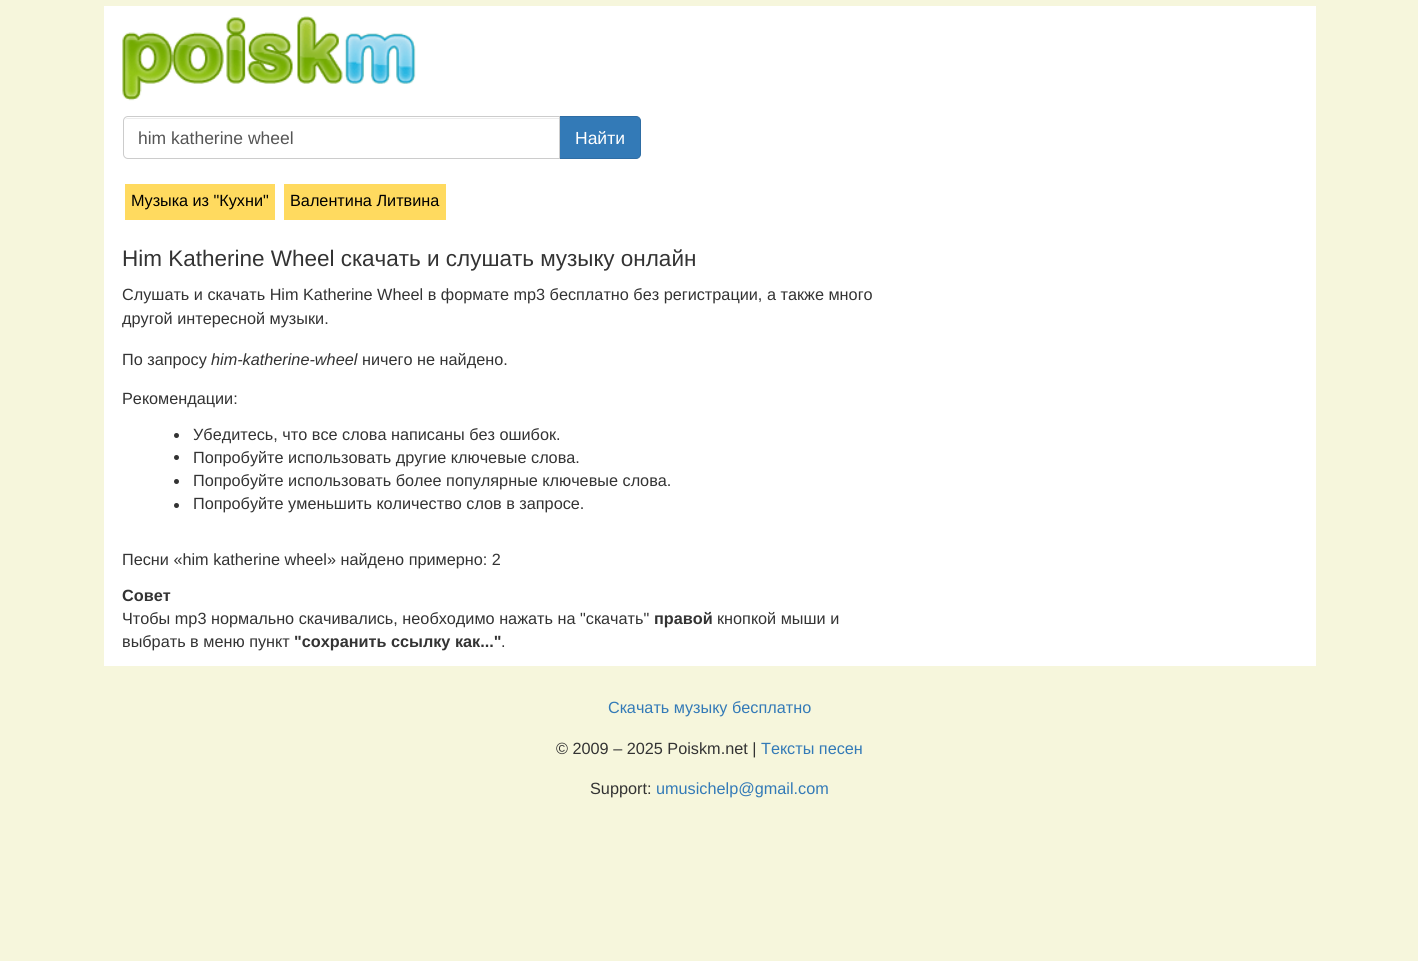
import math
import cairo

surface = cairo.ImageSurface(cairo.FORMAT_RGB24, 1418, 961)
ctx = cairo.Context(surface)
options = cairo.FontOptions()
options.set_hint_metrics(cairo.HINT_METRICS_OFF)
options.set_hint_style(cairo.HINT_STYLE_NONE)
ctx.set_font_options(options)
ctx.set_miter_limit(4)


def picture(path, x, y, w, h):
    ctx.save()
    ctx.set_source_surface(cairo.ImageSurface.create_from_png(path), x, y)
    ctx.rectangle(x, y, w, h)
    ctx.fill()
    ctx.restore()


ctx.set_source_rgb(0.961, 0.961, 0.863)
ctx.paint()
ctx.set_source_rgb(1, 1, 1)
ctx.rectangle(104, 6, 1212, 660)
ctx.fill()
picture("img1.png", 122, 16, 294, 85)
ctx.set_source_rgb(0.2, 0.478, 0.718)
ctx.new_path()
ctx.move_to(559.5, 116.5)
ctx.line_to(636, 116.5)
ctx.curve_to(638.5, 116.5, 640.5, 118.5, 640.5, 121)
ctx.line_to(640.5, 154)
ctx.curve_to(640.5, 156.5, 638.5, 158.5, 636, 158.5)
ctx.line_to(559.5, 158.5)
ctx.close_path()
ctx.fill_preserve()
ctx.set_source_rgb(0.18, 0.427, 0.643)
ctx.set_line_width(1)
ctx.stroke()
ctx.set_source_rgb(1, 1, 1)
ctx.new_path()
ctx.move_to(128, 116)
ctx.line_to(560, 116)
ctx.line_to(560, 159)
ctx.line_to(128, 159)
ctx.curve_to(125, 159, 123, 157, 123, 154)
ctx.line_to(123, 121)
ctx.curve_to(123, 118, 125, 116, 128, 116)
ctx.close_path()
ctx.fill()
ctx.set_source_rgb(0.925, 0.925, 0.925)
ctx.new_path()
ctx.move_to(128, 119)
ctx.line_to(559, 119)
ctx.line_to(559, 118)
ctx.line_to(128, 118)
ctx.curve_to(126, 118, 125, 119, 124, 120)
ctx.curve_to(125, 119, 126, 119, 128, 119)
ctx.close_path()
ctx.fill()
ctx.new_path()
ctx.move_to(128, 116.5)
ctx.line_to(559.5, 116.5)
ctx.line_to(559.5, 158.5)
ctx.line_to(128, 158.5)
ctx.curve_to(125.5, 158.5, 123.5, 156.5, 123.5, 154)
ctx.line_to(123.5, 121)
ctx.curve_to(123.5, 118.5, 125.5, 116.5, 128, 116.5)
ctx.close_path()
ctx.set_source_rgb(0.8, 0.8, 0.8)
ctx.stroke()
ctx.select_font_face("Liberation Sans")
ctx.set_font_size(17.5)
ctx.set_source_rgb(0.333, 0.333, 0.333)
ctx.move_to(138, 144)
ctx.show_text("him katherine wheel")
ctx.set_source_rgb(1, 1, 1)
ctx.move_to(575, 144)
ctx.show_text("Найти")
ctx.set_source_rgb(1, 0.855, 0.373)
ctx.rectangle(125, 184, 150, 36)
ctx.fill()
ctx.set_font_size(16.25)
ctx.set_source_rgb(0, 0, 0)
ctx.move_to(131, 206)
ctx.show_text("Музыка из \"Кухни\"")
ctx.set_source_rgb(1, 0.855, 0.373)
ctx.rectangle(284, 184, 162, 36)
ctx.fill()
ctx.set_source_rgb(0, 0, 0)
ctx.move_to(290, 206)
ctx.show_text("Валентина Литвина")
ctx.set_font_size(22.5)
ctx.set_source_rgb(0.2, 0.2, 0.2)
ctx.move_to(122, 266)
ctx.show_text("Him Katherine Wheel скачать и слушать музыку онлайн")
ctx.set_font_size(16.25)
ctx.move_to(122, 300)
ctx.show_text("Cлушать и скачать Him Katherine Wheel в формате mp3 бесплатно без регистрации, а также много")
ctx.move_to(122, 324)
ctx.show_text("другой интересной музыки.")
ctx.move_to(122, 365)
ctx.show_text("По запросу")
ctx.select_font_face("Liberation Sans", cairo.FONT_SLANT_ITALIC)
ctx.move_to(211, 365)
ctx.show_text("him-katherine-wheel")
ctx.select_font_face("Liberation Sans")
ctx.move_to(362, 365)
ctx.show_text("ничего не найдено.")
ctx.move_to(122, 404)
ctx.show_text("Рекомендации:")
ctx.new_path()
ctx.arc(176.5, 435.5, 2.5, 0, 2 * math.pi)
ctx.fill()
ctx.move_to(193, 440)
ctx.show_text("Убедитесь, что все слова написаны без ошибок.")
ctx.new_path()
ctx.arc(176.5, 457.5, 2.5, 0, 2 * math.pi)
ctx.fill()
ctx.move_to(193, 463)
ctx.show_text("Попробуйте использовать другие ключевые слова.")
ctx.new_path()
ctx.arc(176.5, 481.5, 2.5, 0, 2 * math.pi)
ctx.fill()
ctx.move_to(193, 486)
ctx.show_text("Попробуйте использовать более популярные ключевые слова.")
ctx.new_path()
ctx.arc(176.5, 505.5, 2.5, 0, 2 * math.pi)
ctx.fill()
ctx.move_to(193, 509)
ctx.show_text("Попробуйте уменьшить количество слов в запросе.")
ctx.move_to(122, 565)
ctx.show_text("Песни «him katherine wheel» найдено примерно: 2")
ctx.select_font_face("Liberation Sans", cairo.FONT_SLANT_NORMAL, cairo.FONT_WEIGHT_BOLD)
ctx.move_to(122, 601)
ctx.show_text("Совет")
ctx.select_font_face("Liberation Sans")
ctx.move_to(122, 624)
ctx.show_text("Чтобы mp3 нормально скачивались, необходимо нажать на \"скачать\"")
ctx.select_font_face("Liberation Sans", cairo.FONT_SLANT_NORMAL, cairo.FONT_WEIGHT_BOLD)
ctx.move_to(654, 624)
ctx.show_text("правой")
ctx.select_font_face("Liberation Sans")
ctx.move_to(717, 624)
ctx.show_text("кнопкой мыши и")
ctx.move_to(122, 647)
ctx.show_text("выбрать в меню пункт")
ctx.select_font_face("Liberation Sans", cairo.FONT_SLANT_NORMAL, cairo.FONT_WEIGHT_BOLD)
ctx.move_to(294, 647)
ctx.show_text("\"сохранить ссылку как...\"")
ctx.select_font_face("Liberation Sans")
ctx.move_to(501, 647)
ctx.show_text(".")
ctx.set_source_rgb(0.2, 0.478, 0.718)
ctx.move_to(608, 713)
ctx.show_text("Скачать музыку бесплатно")
ctx.set_source_rgb(0.2, 0.2, 0.2)
ctx.move_to(556, 754)
ctx.show_text("© 2009 – 2025 Poiskm.net |")
ctx.set_source_rgb(0.2, 0.478, 0.718)
ctx.move_to(761, 754)
ctx.show_text("Тексты песен")
ctx.set_source_rgb(0.2, 0.2, 0.2)
ctx.move_to(590, 794)
ctx.show_text("Support:")
ctx.set_source_rgb(0.2, 0.478, 0.718)
ctx.move_to(656, 794)
ctx.show_text("umusichelp@gmail.com")
surface.write_to_png("page.png")
